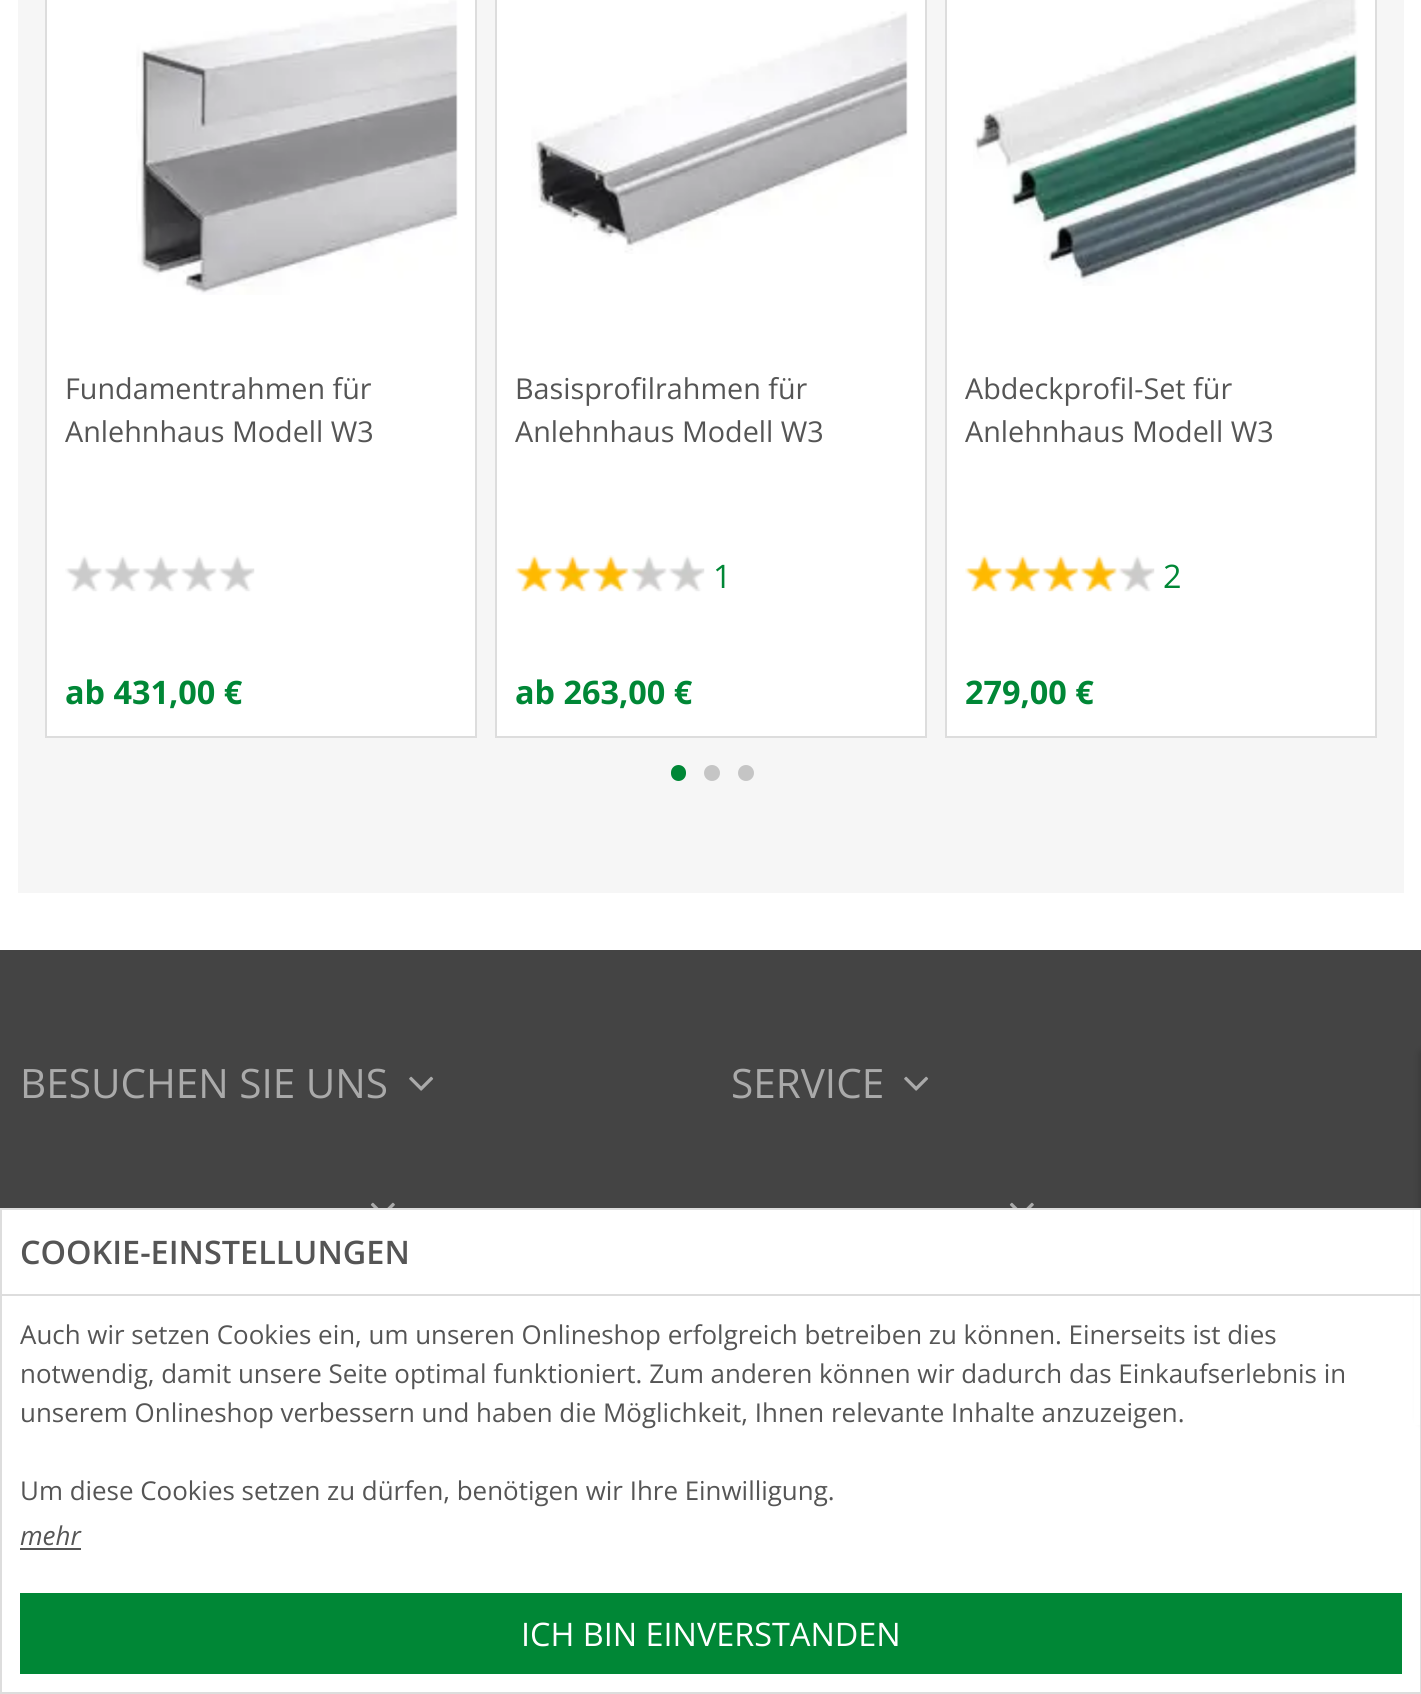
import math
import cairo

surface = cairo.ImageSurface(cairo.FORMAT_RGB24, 1421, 1694)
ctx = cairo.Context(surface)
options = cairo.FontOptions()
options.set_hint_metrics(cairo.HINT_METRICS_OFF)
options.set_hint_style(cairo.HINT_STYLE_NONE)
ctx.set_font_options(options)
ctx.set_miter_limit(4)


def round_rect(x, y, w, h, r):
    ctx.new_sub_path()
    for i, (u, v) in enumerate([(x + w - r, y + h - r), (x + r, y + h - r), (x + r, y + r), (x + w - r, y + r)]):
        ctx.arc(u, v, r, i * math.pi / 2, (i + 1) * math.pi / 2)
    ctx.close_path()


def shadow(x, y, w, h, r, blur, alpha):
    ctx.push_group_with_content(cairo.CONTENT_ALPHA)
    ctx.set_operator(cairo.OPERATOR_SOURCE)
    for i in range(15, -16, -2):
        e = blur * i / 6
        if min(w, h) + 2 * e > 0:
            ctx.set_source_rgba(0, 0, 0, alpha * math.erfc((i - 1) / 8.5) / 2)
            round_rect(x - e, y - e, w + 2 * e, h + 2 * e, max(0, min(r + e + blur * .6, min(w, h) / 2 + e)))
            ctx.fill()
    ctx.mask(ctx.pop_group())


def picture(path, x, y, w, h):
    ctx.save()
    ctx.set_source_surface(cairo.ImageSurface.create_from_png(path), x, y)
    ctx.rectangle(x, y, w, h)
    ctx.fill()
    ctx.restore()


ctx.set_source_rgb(1, 1, 1)
ctx.paint()
ctx.set_source_rgb(0.961, 0.961, 0.961)
ctx.rectangle(18, 0, 1386, 893)
ctx.fill()
ctx.set_source_rgb(1, 1, 1)
ctx.rectangle(46, -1, 430, 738)
ctx.fill_preserve()
ctx.set_source_rgb(0.867, 0.867, 0.867)
ctx.stroke()
picture("img1.png", 136, 0, 322, 295)
ctx.select_font_face("Open Sans")
ctx.set_font_size(28.75)
ctx.set_source_rgb(0.333, 0.333, 0.333)
ctx.move_to(65, 399)
ctx.show_text("Fundamentrahmen für")
ctx.move_to(65, 442)
ctx.show_text("Anlehnhaus Modell W3")
picture("img2.png", 65, 555, 190, 37)
ctx.select_font_face("Open Sans", cairo.FONT_SLANT_NORMAL, cairo.FONT_WEIGHT_BOLD)
ctx.set_font_size(32.4)
ctx.set_source_rgb(0, 0.529, 0.212)
ctx.move_to(65, 704)
ctx.show_text("ab 431,00 €")
ctx.set_source_rgb(1, 1, 1)
ctx.rectangle(496, -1, 430, 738)
ctx.fill_preserve()
ctx.set_source_rgb(0.867, 0.867, 0.867)
ctx.stroke()
picture("img3.png", 531, 11, 377, 243)
ctx.select_font_face("Open Sans")
ctx.set_font_size(28.75)
ctx.set_source_rgb(0.333, 0.333, 0.333)
ctx.move_to(515, 399)
ctx.show_text("Basisprofilrahmen für")
ctx.move_to(515, 442)
ctx.show_text("Anlehnhaus Modell W3")
picture("img4.png", 515, 555, 190, 37)
ctx.set_font_size(32.4)
ctx.set_source_rgb(0, 0.529, 0.212)
ctx.move_to(713, 588)
ctx.show_text("1")
ctx.select_font_face("Open Sans", cairo.FONT_SLANT_NORMAL, cairo.FONT_WEIGHT_BOLD)
ctx.move_to(515, 704)
ctx.show_text("ab 263,00 €")
ctx.set_source_rgb(1, 1, 1)
ctx.rectangle(946, -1, 430, 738)
ctx.fill_preserve()
ctx.set_source_rgb(0.867, 0.867, 0.867)
ctx.stroke()
picture("img5.png", 973, 0, 385, 286)
ctx.select_font_face("Open Sans")
ctx.set_font_size(28.75)
ctx.set_source_rgb(0.333, 0.333, 0.333)
ctx.move_to(965, 399)
ctx.show_text("Abdeckprofil-Set für")
ctx.move_to(965, 442)
ctx.show_text("Anlehnhaus Modell W3")
picture("img6.png", 965, 555, 190, 37)
ctx.set_font_size(32.4)
ctx.set_source_rgb(0, 0.529, 0.212)
ctx.move_to(1163, 588)
ctx.show_text("2")
ctx.select_font_face("Open Sans", cairo.FONT_SLANT_NORMAL, cairo.FONT_WEIGHT_BOLD)
ctx.move_to(965, 704)
ctx.show_text("279,00 €")
round_rect(671, 765, 15, 16, 7.5)
ctx.fill()
ctx.set_source_rgb(0.773, 0.773, 0.773)
ctx.arc(712, 773, 8, 0, 2 * math.pi)
ctx.fill()
ctx.arc(746, 773, 8, 0, 2 * math.pi)
ctx.fill()
ctx.set_source_rgb(0.267, 0.267, 0.267)
ctx.rectangle(0, 950, 1421, 258)
ctx.fill()
ctx.select_font_face("Open Sans")
ctx.set_font_size(40.5)
ctx.set_source_rgb(0.667, 0.667, 0.667)
ctx.move_to(20, 1098)
ctx.show_text("BESUCHEN SIE UNS")
picture("img7.png", 409, 1076, 25, 15)
ctx.move_to(731, 1098)
ctx.show_text("SERVICE")
picture("img7.png", 904, 1076, 25, 15)
picture("img8.png", 370, 1202, 25, 6)
picture("img8.png", 1009, 1202, 25, 6)
ctx.set_source_rgb(0, 0, 0)
shadow(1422, 1053, 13, 367, 0, 4.5, 0.3)
ctx.set_source_rgb(1, 1, 1)
ctx.rectangle(1414, 1210, 6, 215)
ctx.fill()
ctx.rectangle(1, 1209, 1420, 484)
ctx.set_source_rgb(0.867, 0.867, 0.867)
ctx.stroke()
ctx.rectangle(2, 1294, 1418, 2)
ctx.fill()
ctx.select_font_face("Open Sans SemiBold")
ctx.set_font_size(32.4)
ctx.set_source_rgb(0.333, 0.333, 0.333)
ctx.move_to(20, 1264)
ctx.show_text("COOKIE-EINSTELLUNGEN")
ctx.select_font_face("Open Sans")
ctx.set_font_size(25.92)
ctx.move_to(20, 1344)
ctx.show_text("Auch wir setzen Cookies ein, um unseren Onlineshop erfolgreich betreiben zu können. Einerseits ist dies")
ctx.move_to(20, 1383)
ctx.show_text("notwendig, damit unsere Seite optimal funktioniert. Zum anderen können wir dadurch das Einkaufserlebnis in")
ctx.move_to(20, 1422)
ctx.show_text("unserem Onlineshop verbessern und haben die Möglichkeit, Ihnen relevante Inhalte anzuzeigen.")
ctx.move_to(20, 1500)
ctx.show_text("Um diese Cookies setzen zu dürfen, benötigen wir Ihre Einwilligung.")
ctx.select_font_face("Open Sans", cairo.FONT_SLANT_ITALIC)
ctx.move_to(20, 1545)
ctx.show_text("mehr")
ctx.rectangle(20, 1548, 61, 2)
ctx.fill()
ctx.set_source_rgb(0, 0.529, 0.212)
ctx.rectangle(20, 1593, 1382, 81)
ctx.fill()
ctx.select_font_face("Open Sans")
ctx.set_font_size(32.4)
ctx.set_source_rgb(1, 1, 1)
ctx.move_to(521, 1646)
ctx.show_text("ICH BIN EINVERSTANDEN")
surface.write_to_png("page.png")
